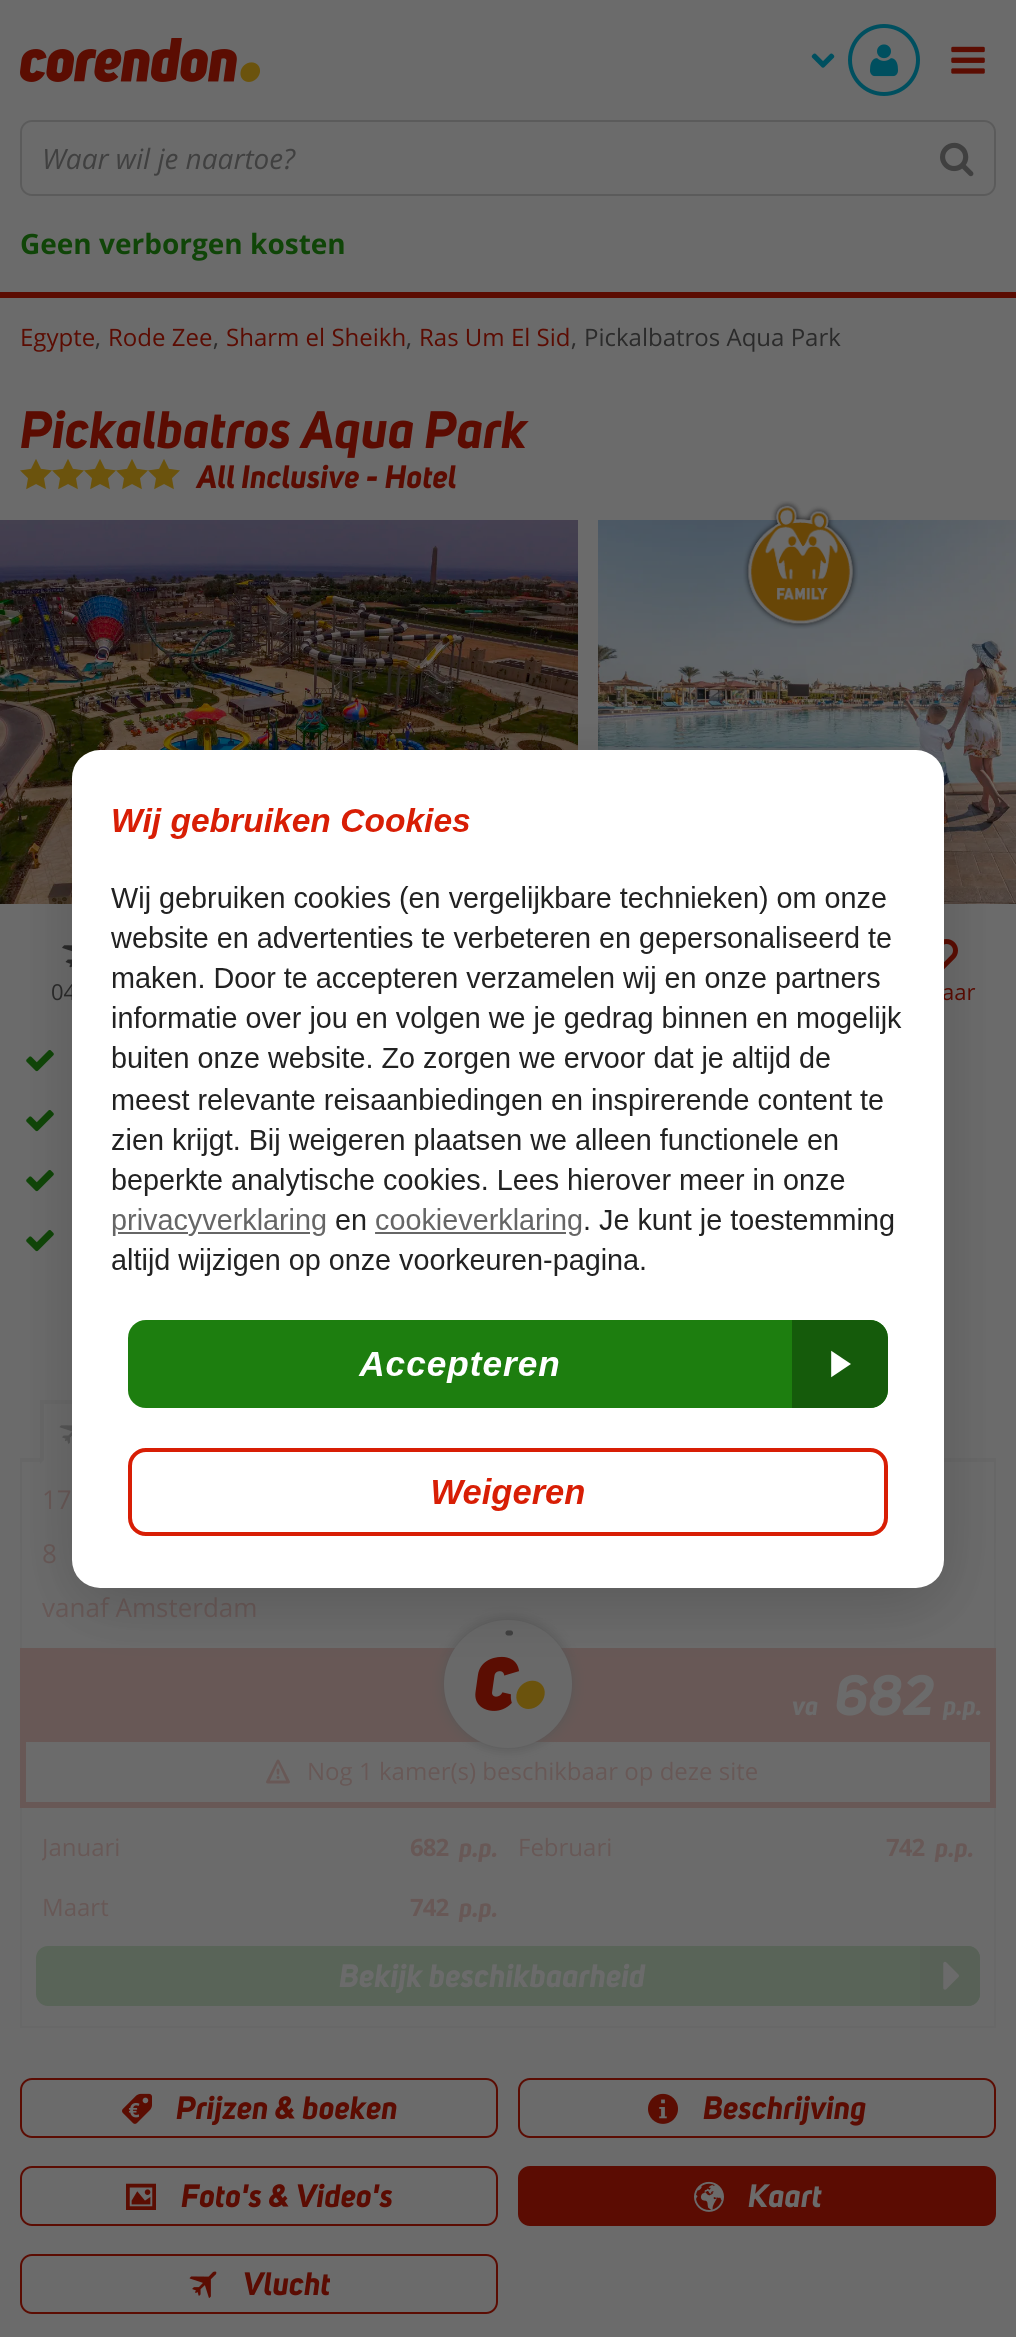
import math
import cairo

surface = cairo.ImageSurface(cairo.FORMAT_RGB24, 1016, 2337)
ctx = cairo.Context(surface)
options = cairo.FontOptions()
options.set_hint_metrics(cairo.HINT_METRICS_OFF)
options.set_hint_style(cairo.HINT_STYLE_NONE)
ctx.set_font_options(options)
ctx.set_miter_limit(4)


def spaced_text(x, y, s, letter, word):
    ctx.move_to(x, y)
    for ch in s:
        ctx.show_text(ch)
        ctx.rel_move_to(letter + word * (ch == ' '), 0)


def round_rect(x, y, w, h, r):
    ctx.new_sub_path()
    for i, (u, v) in enumerate([(x + w - r, y + h - r), (x + r, y + h - r), (x + r, y + r), (x + w - r, y + r)]):
        ctx.arc(u, v, r, i * math.pi / 2, (i + 1) * math.pi / 2)
    ctx.close_path()


def shadow(x, y, w, h, r, blur, alpha):
    ctx.push_group_with_content(cairo.CONTENT_ALPHA)
    ctx.set_operator(cairo.OPERATOR_SOURCE)
    for i in range(15, -16, -2):
        e = blur * i / 6
        if min(w, h) + 2 * e > 0:
            ctx.set_source_rgba(0, 0, 0, alpha * math.erfc((i - 1) / 8.5) / 2)
            round_rect(x - e, y - e, w + 2 * e, h + 2 * e, max(0, min(r + e + blur * .6, min(w, h) / 2 + e)))
            ctx.fill()
    ctx.mask(ctx.pop_group())


def picture(path, x, y, w, h):
    ctx.save()
    ctx.set_source_surface(cairo.ImageSurface.create_from_png(path), x, y)
    ctx.rectangle(x, y, w, h)
    ctx.fill()
    ctx.restore()


ctx.set_source_rgb(0.702, 0.702, 0.702)
ctx.paint()
ctx.set_source_rgb(0.592, 0.082, 0.016)
ctx.rectangle(0, 292, 1016, 6)
ctx.fill()
picture("img2.png", 20, 38, 240, 44)
picture("img3.png", 811, 53, 24, 15)
ctx.arc(884, 60, 34, 0, 2 * math.pi)
ctx.set_source_rgb(0, 0.518, 0.62)
ctx.set_line_width(4)
ctx.stroke()
picture("img4.png", 870, 44, 28, 33)
picture("img5.png", 951, 46, 34, 28)
round_rect(21, 121, 974, 74, 11)
ctx.set_source_rgb(0.596, 0.596, 0.596)
ctx.set_line_width(2)
ctx.stroke()
ctx.select_font_face("Open Sans", cairo.FONT_SLANT_ITALIC)
ctx.set_font_size(28)
ctx.set_source_rgb(0.42, 0.42, 0.42)
ctx.move_to(42, 169)
ctx.show_text("Waar wil je naartoe?")
picture("img6.png", 940, 142, 34, 35)
ctx.select_font_face("Open Sans", cairo.FONT_SLANT_NORMAL, cairo.FONT_WEIGHT_BOLD)
ctx.set_source_rgb(0.106, 0.451, 0.055)
ctx.move_to(20, 254)
ctx.show_text("Geen verborgen kosten")
ctx.select_font_face("Open Sans")
ctx.set_font_size(24)
ctx.set_source_rgb(0.592, 0.082, 0.016)
ctx.move_to(20, 346)
ctx.show_text("Egypte")
ctx.set_source_rgb(0.278, 0.278, 0.278)
ctx.move_to(95, 346)
ctx.show_text(",")
ctx.set_source_rgb(0.592, 0.082, 0.016)
ctx.move_to(108, 346)
ctx.show_text("Rode Zee")
ctx.set_source_rgb(0.278, 0.278, 0.278)
ctx.move_to(213, 346)
ctx.show_text(",")
ctx.set_source_rgb(0.592, 0.082, 0.016)
ctx.move_to(226, 346)
ctx.show_text("Sharm el Sheikh")
ctx.set_source_rgb(0.278, 0.278, 0.278)
ctx.move_to(406, 346)
ctx.show_text(",")
ctx.set_source_rgb(0.592, 0.082, 0.016)
ctx.move_to(419, 346)
ctx.show_text("Ras Um El Sid")
ctx.set_source_rgb(0.278, 0.278, 0.278)
ctx.move_to(571, 346)
ctx.show_text(",")
ctx.move_to(584, 346)
ctx.show_text("Pickalbatros Aqua Park")
ctx.select_font_face("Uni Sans", cairo.FONT_SLANT_ITALIC, cairo.FONT_WEIGHT_BOLD)
ctx.set_font_size(52)
ctx.set_source_rgb(0.592, 0.082, 0.016)
ctx.move_to(20, 448)
ctx.show_text("Pickalbatros Aqua Park")
picture("img7.png", 20, 459, 160, 31)
ctx.set_font_size(32)
ctx.move_to(197, 488)
ctx.show_text("All Inclusive - Hotel")
picture("img10.png", 598, 520, 418, 384)
picture("img8.png", 743, 501, 115, 128)
picture("img9.png", 0, 520, 578, 384)
picture("img11.png", 62, 945, 10, 23)
ctx.select_font_face("Open Sans")
ctx.set_font_size(22)
ctx.set_source_rgb(0.278, 0.278, 0.278)
ctx.move_to(51, 1000)
ctx.show_text("04")
picture("img12.png", 944, 939, 14, 31)
ctx.set_source_rgb(0.592, 0.082, 0.016)
ctx.move_to(942, 1000)
ctx.show_text("aar")
picture("img13.png", 26, 1050, 28, 22)
picture("img13.png", 26, 1110, 28, 22)
picture("img13.png", 26, 1170, 28, 22)
picture("img13.png", 26, 1230, 28, 22)
ctx.set_source_rgb(0.678, 0.678, 0.678)
ctx.rectangle(994, 1458, 2, 190)
ctx.fill()
ctx.rectangle(20, 1458, 2, 190)
ctx.fill()
ctx.rectangle(20, 1458, 976, 4)
ctx.fill()
ctx.set_source_rgb(0.702, 0.702, 0.702)
ctx.rectangle(40, 1458, 32, 4)
ctx.fill()
ctx.set_source_rgb(0.678, 0.678, 0.678)
ctx.rectangle(40, 1400, 32, 4)
ctx.fill()
ctx.set_source_rgb(0.702, 0.702, 0.702)
ctx.new_path()
ctx.move_to(170, 1464)
ctx.line_to(40, 1464)
ctx.line_to(44, 1460)
ctx.line_to(166, 1460)
ctx.close_path()
ctx.fill()
ctx.set_source_rgb(0.678, 0.678, 0.678)
ctx.new_path()
ctx.move_to(40, 1464)
ctx.line_to(40, 1400)
ctx.line_to(44, 1404)
ctx.line_to(44, 1460)
ctx.close_path()
ctx.fill()
picture("img14.png", 59, 1425, 13, 19)
ctx.set_font_size(26)
ctx.set_source_rgb(0.678, 0.576, 0.565)
ctx.move_to(42, 1509)
ctx.show_text("17")
ctx.move_to(42, 1563)
ctx.show_text("8")
ctx.move_to(42, 1617)
ctx.show_text("vanaf Amsterdam")
ctx.rectangle(20, 1648, 976, 88)
ctx.fill()
ctx.rectangle(23, 1739, 970, 66)
ctx.set_line_width(6)
ctx.stroke()
ctx.set_source_rgb(0.561, 0.561, 0.561)
shadow(444, 1620, 128, 128, 64, 6.5, 1)
ctx.set_source_rgb(0.686, 0.686, 0.686)
ctx.arc(508, 1684, 64, 0, 2 * math.pi)
ctx.fill()
ctx.new_path()
ctx.move_to(508, 1633)
ctx.line_to(510.5, 1633)
ctx.set_source_rgb(0.42, 0.42, 0.42)
ctx.set_line_width(5.1)
ctx.set_line_cap(cairo.LINE_CAP_ROUND)
ctx.stroke()
picture("img15.png", 475, 1656, 70, 55)
ctx.select_font_face("Uni Sans", cairo.FONT_SLANT_ITALIC, cairo.FONT_WEIGHT_BOLD)
ctx.set_source_rgb(0.702, 0.702, 0.702)
ctx.move_to(792, 1715)
ctx.show_text("va")
ctx.set_font_size(56)
ctx.move_to(835, 1715)
ctx.show_text("682")
ctx.set_font_size(26)
ctx.move_to(943, 1715)
ctx.show_text("p.p.")
picture("img16.png", 266, 1759, 24, 25)
ctx.select_font_face("Open Sans")
ctx.set_font_size(24)
ctx.set_source_rgb(0.678, 0.576, 0.565)
ctx.move_to(307, 1780)
ctx.show_text("Nog 1 kamer(s) beschikbaar op deze site")
ctx.set_source_rgb(0.678, 0.678, 0.678)
ctx.rectangle(994, 1808, 2, 220)
ctx.fill()
ctx.rectangle(20, 1808, 2, 142)
ctx.fill()
ctx.save()
ctx.rectangle(42, 1828, 456, 40)
ctx.clip()
ctx.set_source_rgb(0.678, 0.576, 0.565)
ctx.move_to(42, 1856)
ctx.show_text("Januari")
ctx.restore()
ctx.select_font_face("Open Sans", cairo.FONT_SLANT_NORMAL, cairo.FONT_WEIGHT_BOLD)
ctx.set_source_rgb(0.678, 0.576, 0.565)
spaced_text(410, 1856, "682", -1, 0)
ctx.select_font_face("Uni Sans", cairo.FONT_SLANT_ITALIC, cairo.FONT_WEIGHT_BOLD)
ctx.set_font_size(26)
ctx.move_to(459, 1857)
ctx.show_text("p.p.")
ctx.select_font_face("Open Sans")
ctx.set_font_size(24)
ctx.move_to(518, 1856)
ctx.show_text("Februari")
ctx.select_font_face("Open Sans", cairo.FONT_SLANT_NORMAL, cairo.FONT_WEIGHT_BOLD)
spaced_text(886, 1856, "742", -1, 0)
ctx.select_font_face("Uni Sans", cairo.FONT_SLANT_ITALIC, cairo.FONT_WEIGHT_BOLD)
ctx.set_font_size(26)
ctx.move_to(935, 1857)
ctx.show_text("p.p.")
ctx.select_font_face("Open Sans")
ctx.set_font_size(24)
ctx.move_to(42, 1916)
ctx.show_text("Maart")
ctx.select_font_face("Open Sans", cairo.FONT_SLANT_NORMAL, cairo.FONT_WEIGHT_BOLD)
spaced_text(410, 1916, "742", -1, 0)
ctx.select_font_face("Uni Sans", cairo.FONT_SLANT_ITALIC, cairo.FONT_WEIGHT_BOLD)
ctx.set_font_size(26)
ctx.move_to(459, 1917)
ctx.show_text("p.p.")
ctx.set_source_rgb(0.678, 0.678, 0.678)
ctx.rectangle(20, 2026, 976, 2)
ctx.fill()
ctx.rectangle(20, 1946, 2, 82)
ctx.fill()
ctx.set_source_rgb(0.58, 0.651, 0.573)
round_rect(36, 1946, 944, 60, 12)
ctx.fill()
ctx.set_font_size(32)
ctx.set_source_rgb(0.702, 0.702, 0.702)
ctx.move_to(339, 1987)
ctx.show_text("Bekijk beschikbaarheid")
ctx.set_source_rgb(0.576, 0.635, 0.569)
ctx.new_path()
ctx.move_to(920, 1946)
ctx.line_to(968, 1946)
ctx.curve_to(974.5, 1946, 980, 1951.5, 980, 1958)
ctx.line_to(980, 1994)
ctx.curve_to(980, 2000.5, 974.5, 2006, 968, 2006)
ctx.line_to(920, 2006)
ctx.close_path()
ctx.fill()
picture("img17.png", 943, 1961, 16, 29)
round_rect(21, 2079, 476, 58, 11)
ctx.set_source_rgb(0.592, 0.082, 0.016)
ctx.set_line_width(2)
ctx.set_line_cap(cairo.LINE_CAP_BUTT)
ctx.stroke()
picture("img18.png", 122, 2093, 30, 31)
ctx.move_to(176, 2119)
ctx.show_text("Prijzen & boeken")
round_rect(519, 2079, 476, 58, 11)
ctx.stroke()
picture("img19.png", 648, 2093, 30, 31)
ctx.move_to(703, 2119)
ctx.show_text("Beschrijving")
round_rect(21, 2167, 476, 58, 11)
ctx.stroke()
picture("img20.png", 126, 2183, 30, 27)
ctx.move_to(181, 2207)
ctx.show_text("Foto's & Video's")
round_rect(519, 2167, 476, 58, 11)
ctx.fill_preserve()
ctx.stroke()
picture("img21.png", 694, 2181, 30, 31)
ctx.set_source_rgb(0.702, 0.702, 0.702)
ctx.move_to(748, 2207)
ctx.show_text("Kaart")
round_rect(21, 2255, 476, 58, 11)
ctx.set_source_rgb(0.592, 0.082, 0.016)
ctx.stroke()
picture("img22.png", 189, 2271, 28, 27)
ctx.move_to(243, 2295)
ctx.show_text("Vlucht")
picture("img1.png", 0, 0, 1016, 2337)
surface.write_to_png("page.png")
